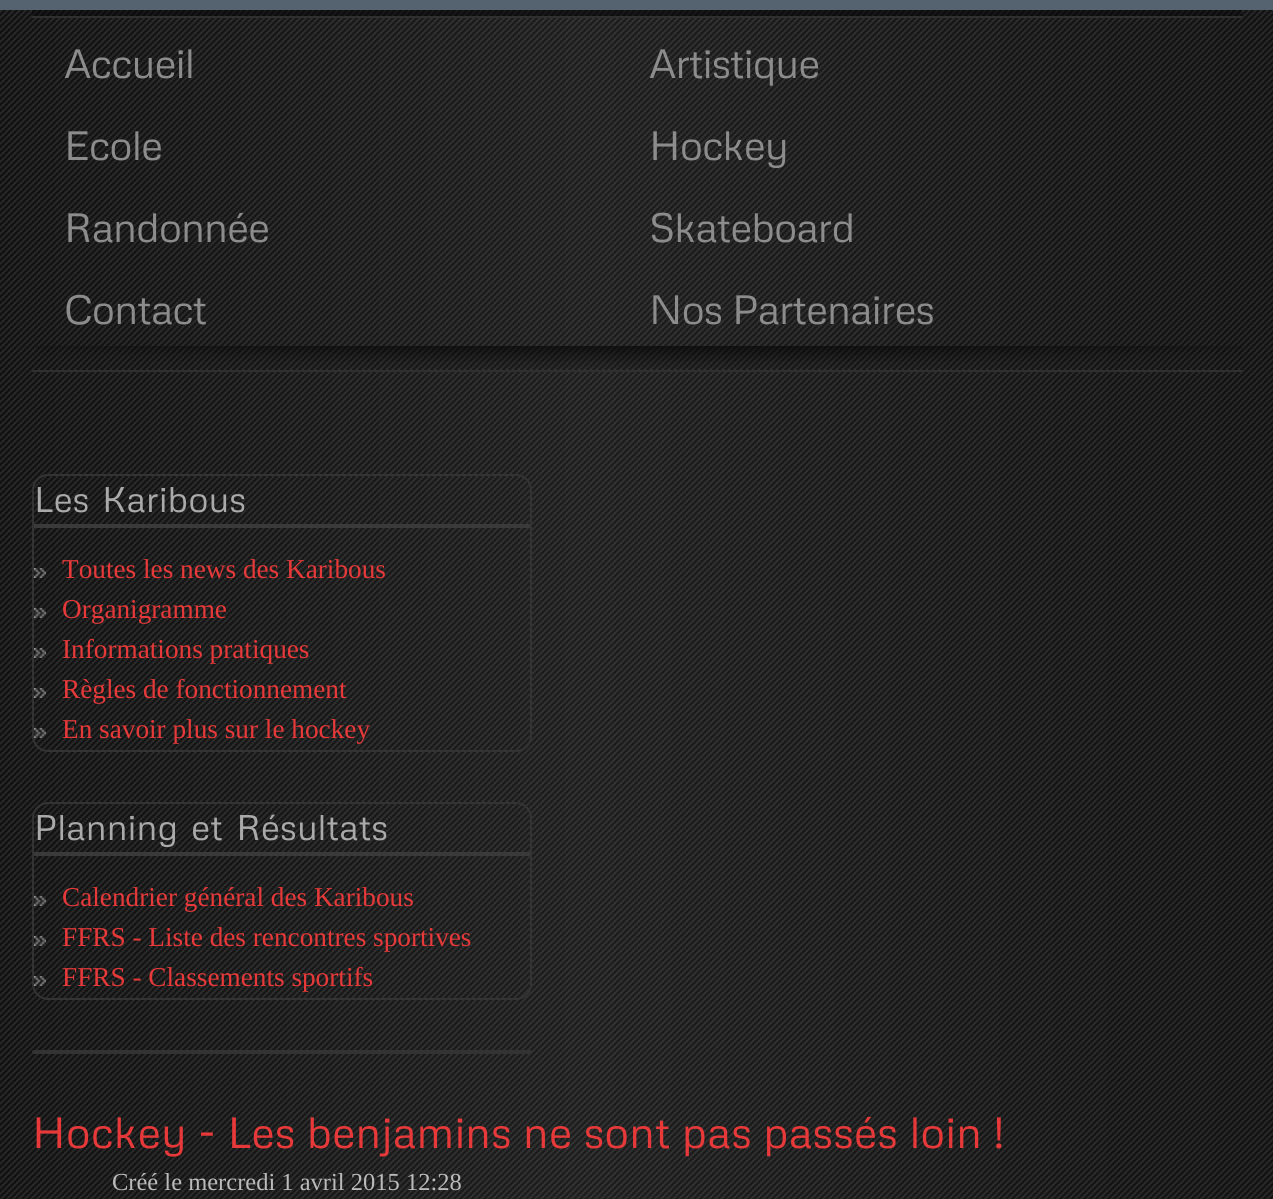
import math
import cairo

surface = cairo.ImageSurface(cairo.FORMAT_RGB24, 1273, 1199)
ctx = cairo.Context(surface)
options = cairo.FontOptions()
options.set_hint_metrics(cairo.HINT_METRICS_OFF)
options.set_hint_style(cairo.HINT_STYLE_NONE)
ctx.set_font_options(options)
ctx.set_miter_limit(4)


def spaced_text(x, y, s, letter, word):
    ctx.move_to(x, y)
    for ch in s:
        ctx.show_text(ch)
        ctx.rel_move_to(letter + word * (ch == ' '), 0)


def round_rect(x, y, w, h, r):
    ctx.new_sub_path()
    for i, (u, v) in enumerate([(x + w - r, y + h - r), (x + r, y + h - r), (x + r, y + r), (x + w - r, y + r)]):
        ctx.arc(u, v, r, i * math.pi / 2, (i + 1) * math.pi / 2)
    ctx.close_path()


def picture(path, x, y, w, h):
    ctx.save()
    ctx.set_source_surface(cairo.ImageSurface.create_from_png(path), x, y)
    ctx.rectangle(x, y, w, h)
    ctx.fill()
    ctx.restore()


ctx.set_source_rgb(0, 0, 0)
ctx.paint()
picture("img1.png", 0, 10, 1273, 1189)
picture("img2.png", 0, 10, 1273, 1189)
ctx.set_source_rgb(0.333, 0.384, 0.439)
ctx.rectangle(0, 0, 1273, 10)
ctx.fill()
picture("img3.png", 32, 10, 1210, 6)
ctx.set_source_rgb(0.184, 0.184, 0.184)
ctx.rectangle(32, 16, 1210, 2)
ctx.fill()
picture("img4.png", 36, 346, 1206, 23)
ctx.rectangle(32, 370, 1210, 2)
ctx.fill()
ctx.select_font_face("Metrophobic")
ctx.set_font_size(40.75)
ctx.set_source_rgb(0.549, 0.549, 0.549)
spaced_text(64, 78, "Accueil", -1, 0)
spaced_text(649, 78, "Artistique", -1, 0)
spaced_text(64, 160, "Ecole", -1, 0)
spaced_text(649, 160, "Hockey", -1, 0)
spaced_text(64, 242, "Randonnée", -1, 0)
spaced_text(649, 242, "Skateboard", -1, 0)
spaced_text(64, 324, "Contact", -1, 0)
spaced_text(649, 324, "Nos Partenaires", -1, 0)
round_rect(33, 475, 498, 276, 15)
ctx.set_source_rgb(0.2, 0.2, 0.2)
ctx.stroke()
ctx.set_source_rgb(0.227, 0.227, 0.227)
ctx.rectangle(34, 524, 496, 4)
ctx.fill()
ctx.set_font_size(35.5)
ctx.set_source_rgb(0.667, 0.667, 0.667)
ctx.move_to(34, 512)
ctx.show_text("Les")
ctx.move_to(102, 512)
ctx.show_text("Karibous")
picture("img5.png", 34, 568, 12, 10)
ctx.select_font_face("Liberation Serif")
ctx.set_font_size(27.25)
ctx.set_source_rgb(0.906, 0.224, 0.224)
ctx.move_to(62, 578)
ctx.show_text("Toutes les news des Karibous")
picture("img6.png", 34, 608, 12, 10)
ctx.move_to(62, 618)
ctx.show_text("Organigramme")
picture("img7.png", 34, 648, 12, 10)
ctx.move_to(62, 658)
ctx.show_text("Informations pratiques")
picture("img8.png", 34, 688, 12, 10)
ctx.move_to(62, 698)
ctx.show_text("Règles de fonctionnement")
picture("img6.png", 34, 728, 12, 10)
ctx.move_to(62, 738)
ctx.show_text("En savoir plus sur le hockey")
round_rect(33, 803, 498, 196, 15)
ctx.set_source_rgb(0.2, 0.2, 0.2)
ctx.stroke()
ctx.set_source_rgb(0.227, 0.227, 0.227)
ctx.rectangle(34, 852, 496, 4)
ctx.fill()
ctx.select_font_face("Metrophobic")
ctx.set_font_size(35.5)
ctx.set_source_rgb(0.667, 0.667, 0.667)
ctx.move_to(34, 840)
ctx.show_text("Planning")
spaced_text(191, 840, "et Résultats", 0, 4)
picture("img9.png", 34, 896, 12, 10)
ctx.select_font_face("Liberation Serif")
ctx.set_font_size(27.25)
ctx.set_source_rgb(0.906, 0.224, 0.224)
ctx.move_to(62, 906)
ctx.show_text("Calendrier général des Karibous")
picture("img10.png", 34, 936, 12, 10)
ctx.move_to(62, 946)
ctx.show_text("FFRS - Liste des rencontres sportives")
picture("img8.png", 34, 976, 12, 10)
ctx.move_to(62, 986)
ctx.show_text("FFRS - Classements sportifs")
ctx.set_source_rgb(0.2, 0.2, 0.2)
round_rect(32, 1050, 500, 4, 2)
ctx.fill()
ctx.select_font_face("Metrophobic")
ctx.set_font_size(43.5)
ctx.set_source_rgb(0.906, 0.224, 0.224)
ctx.move_to(32, 1148)
ctx.show_text("Hockey - Les benjamins ne sont pas passés loin !")
ctx.select_font_face("Liberation Serif")
ctx.set_font_size(24.5)
ctx.set_source_rgb(0.733, 0.733, 0.733)
ctx.move_to(112, 1190)
ctx.show_text("Créé le mercredi 1 avril 2015 12:28")
surface.write_to_png("page.png")
